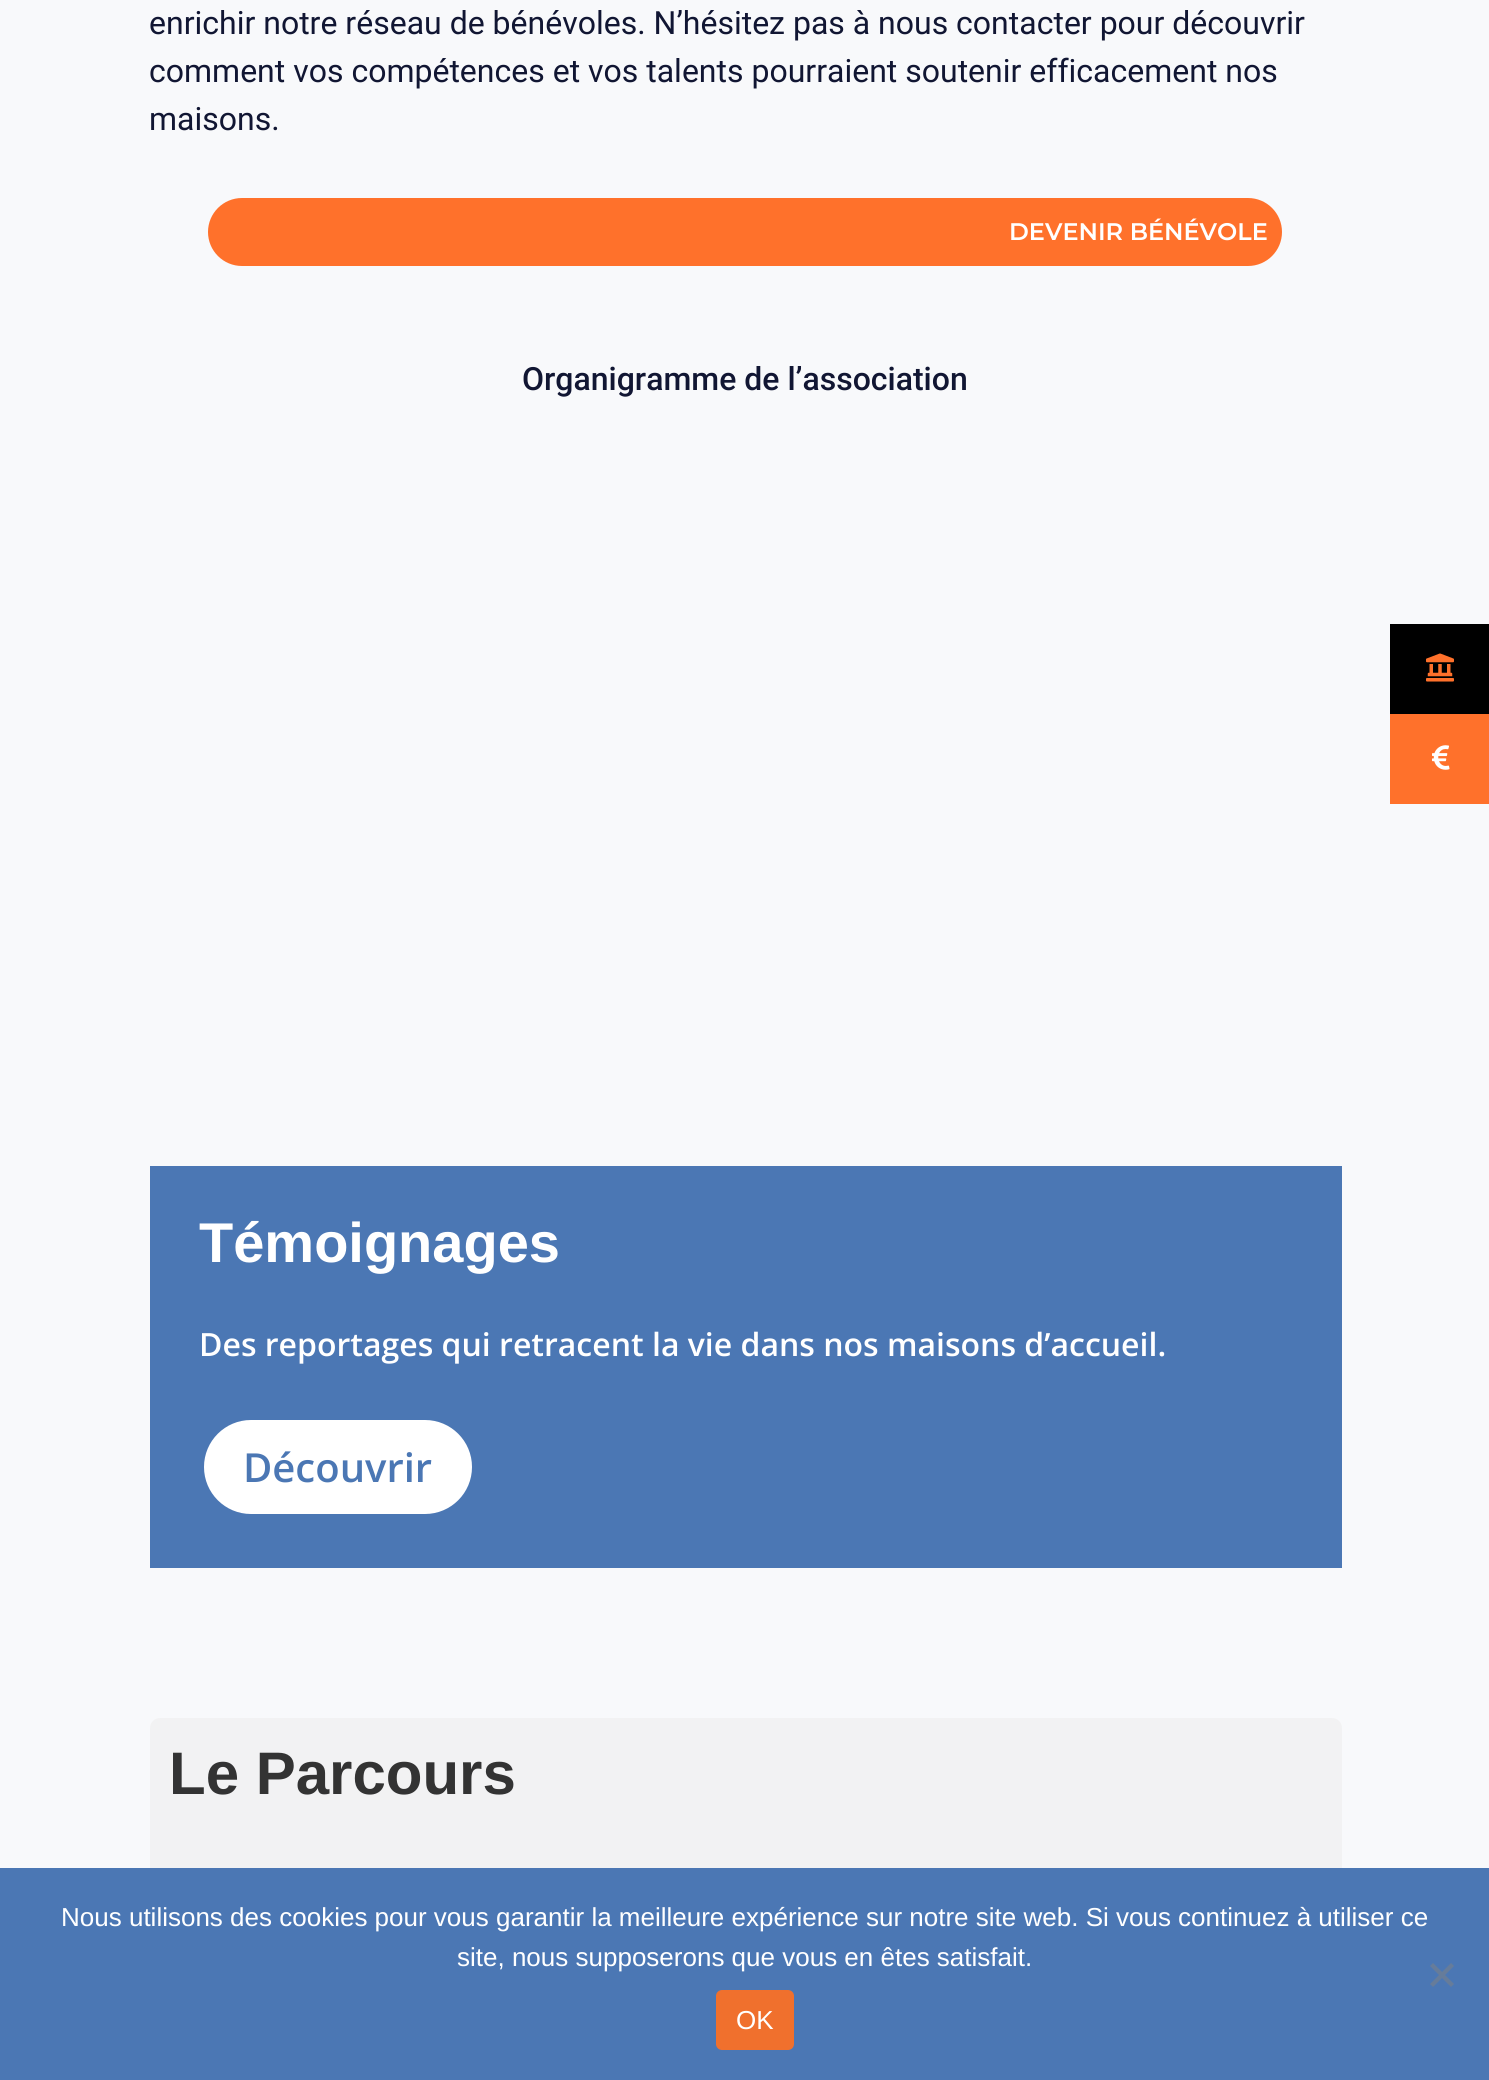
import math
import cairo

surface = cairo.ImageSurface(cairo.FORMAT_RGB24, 1489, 2080)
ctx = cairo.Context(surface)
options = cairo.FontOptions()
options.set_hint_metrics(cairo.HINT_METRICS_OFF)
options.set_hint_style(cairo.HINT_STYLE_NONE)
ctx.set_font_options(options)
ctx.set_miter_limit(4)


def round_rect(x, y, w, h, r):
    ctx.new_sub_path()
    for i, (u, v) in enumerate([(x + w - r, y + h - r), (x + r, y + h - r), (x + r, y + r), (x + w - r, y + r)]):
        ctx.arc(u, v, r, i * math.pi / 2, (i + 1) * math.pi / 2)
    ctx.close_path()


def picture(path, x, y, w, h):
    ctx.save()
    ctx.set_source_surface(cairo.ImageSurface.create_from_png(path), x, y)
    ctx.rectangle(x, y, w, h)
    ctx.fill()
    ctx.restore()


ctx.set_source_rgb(0.969, 0.976, 0.984)
ctx.paint()
ctx.select_font_face("Roboto")
ctx.set_font_size(32)
ctx.set_source_rgb(0.067, 0.086, 0.2)
ctx.move_to(149, 34)
ctx.show_text("enrichir notre réseau de bénévoles. N’hésitez pas à nous contacter pour découvrir")
ctx.move_to(149, 82)
ctx.show_text("comment vos compétences et vos talents pourraient soutenir efficacement nos")
ctx.move_to(149, 130)
ctx.show_text("maisons.")
ctx.set_source_rgb(1, 0.443, 0.169)
round_rect(208, 198, 1074, 68, 34)
ctx.fill()
ctx.select_font_face("Montserrat SemiBold")
ctx.set_font_size(24)
ctx.set_source_rgb(1, 1, 1)
ctx.move_to(1009, 240)
ctx.show_text("DEVENIR BÉNÉVOLE")
ctx.select_font_face("Roboto Medium")
ctx.set_font_size(32)
ctx.set_source_rgb(0.067, 0.086, 0.2)
ctx.move_to(522, 390)
ctx.show_text("Organigramme de l’association")
ctx.set_source_rgb(0.294, 0.467, 0.706)
ctx.rectangle(150, 1166, 1192, 402)
ctx.fill()
ctx.select_font_face("Liberation Sans", cairo.FONT_SLANT_NORMAL, cairo.FONT_WEIGHT_BOLD)
ctx.set_font_size(56)
ctx.set_source_rgb(1, 1, 1)
ctx.move_to(199, 1262)
ctx.show_text("Témoignages")
ctx.select_font_face("Open Sans SemiBold")
ctx.set_font_size(32)
ctx.move_to(199, 1356)
ctx.show_text("Des reportages qui retracent la vie dans nos maisons d’accueil.")
round_rect(202, 1418, 272, 98, 49)
ctx.fill_preserve()
ctx.set_source_rgb(0.294, 0.467, 0.706)
ctx.set_line_width(4)
ctx.stroke()
ctx.set_font_size(40)
ctx.move_to(243, 1482)
ctx.show_text("Découvrir")
ctx.set_source_rgb(0.949, 0.949, 0.953)
ctx.new_path()
ctx.move_to(160, 1718)
ctx.line_to(1332, 1718)
ctx.curve_to(1337.5, 1718, 1342, 1722.5, 1342, 1728)
ctx.line_to(1342, 1868)
ctx.line_to(150, 1868)
ctx.line_to(150, 1728)
ctx.curve_to(150, 1722.5, 154.5, 1718, 160, 1718)
ctx.close_path()
ctx.fill()
ctx.select_font_face("Liberation Sans", cairo.FONT_SLANT_NORMAL, cairo.FONT_WEIGHT_BOLD)
ctx.set_font_size(60)
ctx.set_source_rgb(0.2, 0.2, 0.2)
ctx.move_to(169, 1794)
ctx.show_text("Le Parcours")
ctx.set_source_rgb(0, 0, 0)
ctx.rectangle(1390, 624, 99, 90)
ctx.fill()
picture("img1.png", 1426, 653, 28, 29)
ctx.set_source_rgb(1, 0.443, 0.169)
ctx.rectangle(1390, 714, 99, 90)
ctx.fill()
picture("img2.png", 1432, 745, 18, 25)
ctx.set_source_rgb(0.294, 0.467, 0.706)
ctx.rectangle(0, 1868, 1489, 212)
ctx.fill()
ctx.select_font_face("Liberation Sans")
ctx.set_font_size(26)
ctx.set_source_rgb(1, 1, 1)
ctx.move_to(61, 1926)
ctx.show_text("Nous utilisons des cookies pour vous garantir la meilleure expérience sur notre site web. Si vous continuez à utiliser ce")
ctx.move_to(457, 1966)
ctx.show_text("site, nous supposerons que vous en êtes satisfait.")
ctx.set_source_rgb(0.4, 0.486, 0.604)
ctx.new_path()
ctx.move_to(1451, 1963)
ctx.line_to(1454, 1966)
ctx.line_to(1433, 1987)
ctx.line_to(1430, 1984)
ctx.close_path()
ctx.fill()
ctx.new_path()
ctx.move_to(1430, 1966)
ctx.line_to(1433, 1963)
ctx.line_to(1454, 1984)
ctx.line_to(1451, 1987)
ctx.close_path()
ctx.fill()
ctx.set_source_rgb(0.941, 0.439, 0.176)
round_rect(716, 1990, 78, 60, 6)
ctx.fill()
ctx.set_source_rgb(1, 1, 1)
ctx.move_to(736, 2029)
ctx.show_text("OK")
surface.write_to_png("page.png")
